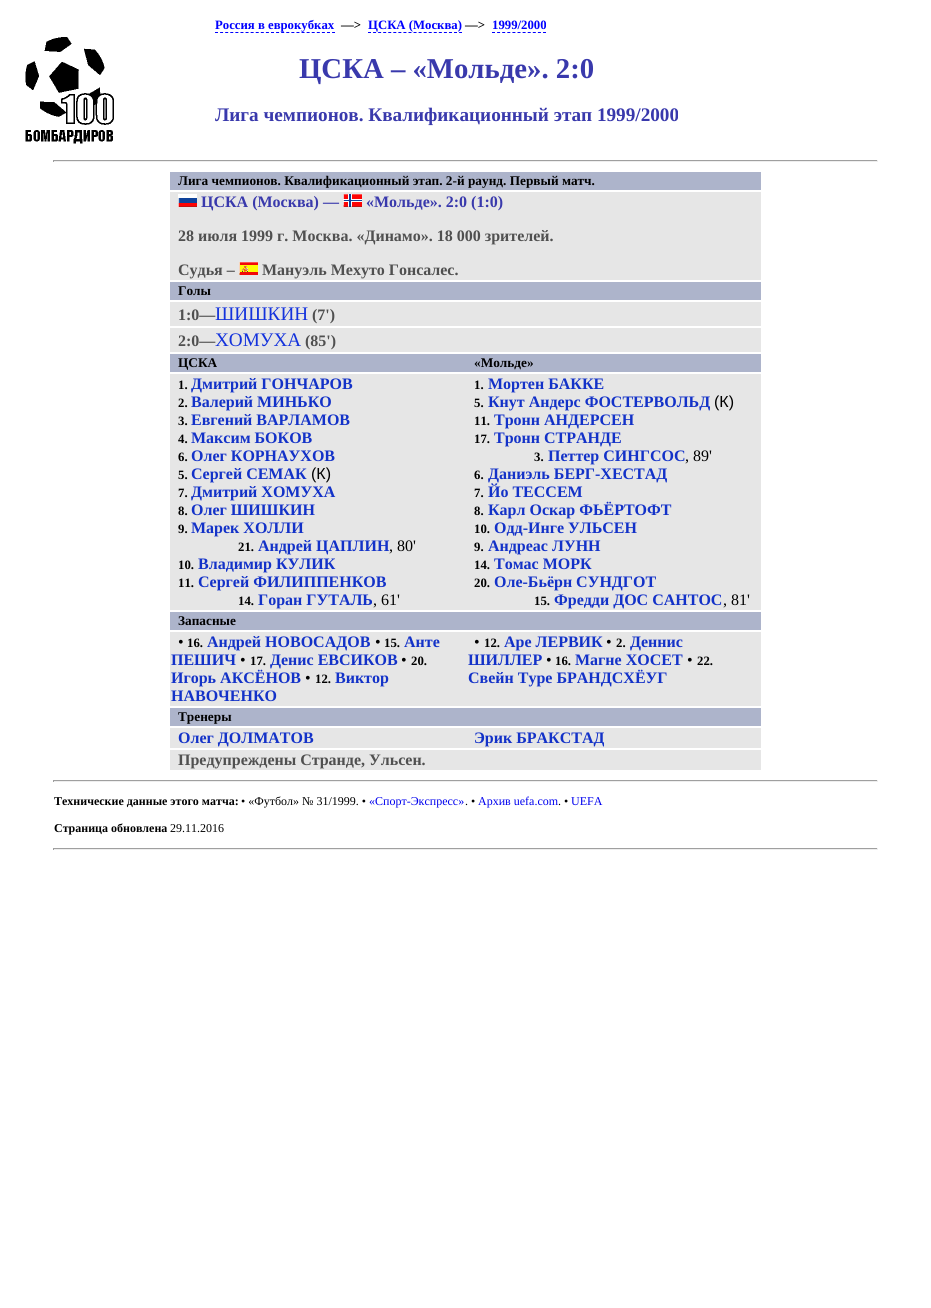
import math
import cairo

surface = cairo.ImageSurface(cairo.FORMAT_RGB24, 931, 1308)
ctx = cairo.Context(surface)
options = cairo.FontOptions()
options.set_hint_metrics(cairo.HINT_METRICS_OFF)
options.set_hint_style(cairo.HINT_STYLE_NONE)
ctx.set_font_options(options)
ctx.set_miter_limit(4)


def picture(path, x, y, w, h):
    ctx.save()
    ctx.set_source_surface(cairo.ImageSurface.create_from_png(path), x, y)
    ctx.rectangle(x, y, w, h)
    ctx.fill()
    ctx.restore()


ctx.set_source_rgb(1, 1, 1)
ctx.paint()
picture("img1.png", 25, 37, 89, 107)
ctx.select_font_face("Liberation Serif", cairo.FONT_SLANT_NORMAL, cairo.FONT_WEIGHT_BOLD)
ctx.set_font_size(12.75)
ctx.set_source_rgb(0, 0, 1)
ctx.move_to(215, 29)
ctx.show_text("Россия в еврокубках")
ctx.new_path()
ctx.move_to(215, 32.5)
ctx.line_to(335, 32.5)
ctx.set_line_width(1)
ctx.set_dash([3, 2.09])
ctx.stroke()
ctx.set_source_rgb(0, 0, 0)
ctx.move_to(341, 29)
ctx.show_text("—>")
ctx.set_source_rgb(0, 0, 1)
ctx.move_to(368, 29)
ctx.show_text("ЦСКА (Москва)")
ctx.new_path()
ctx.move_to(368, 32.5)
ctx.line_to(462, 32.5)
ctx.set_dash([3, 2.06])
ctx.stroke()
ctx.set_source_rgb(0, 0, 0)
ctx.move_to(465, 29)
ctx.show_text("—>")
ctx.set_source_rgb(0, 0, 1)
ctx.move_to(492, 29)
ctx.show_text("1999/2000")
ctx.new_path()
ctx.move_to(492, 32.5)
ctx.line_to(546, 32.5)
ctx.set_dash([3, 2.1])
ctx.stroke()
ctx.set_font_size(28.75)
ctx.set_source_rgb(0.224, 0.224, 0.675)
ctx.move_to(299, 78)
ctx.show_text("ЦСКА – «Мольде». 2:0")
ctx.set_font_size(19.2)
ctx.move_to(215, 121)
ctx.show_text("Лига чемпионов. Квалификационный этап 1999/2000")
ctx.set_source_rgb(0.624, 0.624, 0.624)
ctx.rectangle(53, 160, 825, 1)
ctx.fill()
ctx.set_source_rgb(0.933, 0.933, 0.933)
ctx.rectangle(877, 160, 1, 2)
ctx.fill()
ctx.rectangle(53, 161, 825, 1)
ctx.fill()
ctx.set_source_rgb(0.624, 0.624, 0.624)
ctx.rectangle(53, 160, 1, 2)
ctx.fill()
ctx.set_source_rgb(0.678, 0.706, 0.796)
ctx.rectangle(170, 172, 591, 18)
ctx.fill()
ctx.set_font_size(13.3)
ctx.set_source_rgb(0, 0, 0)
ctx.move_to(178, 185)
ctx.show_text("Лига чемпионов. Квалификационный этап. 2-й раунд. Первый матч.")
ctx.set_source_rgb(0.902, 0.902, 0.902)
ctx.rectangle(170, 192, 591, 88)
ctx.fill()
picture("img2.png", 178, 194, 19, 13)
ctx.set_font_size(16)
ctx.set_source_rgb(0.224, 0.224, 0.675)
ctx.move_to(201, 207)
ctx.show_text("ЦСКА (Москва) —")
picture("img3.png", 343, 194, 19, 13)
ctx.move_to(366, 207)
ctx.show_text("«Мольде». 2:0 (1:0)")
ctx.set_source_rgb(0.314, 0.314, 0.314)
ctx.move_to(178, 241)
ctx.show_text("28 июля 1999 г. Москва. «Динамо». 18 000 зрителей.")
ctx.move_to(178, 275)
ctx.show_text("Судья –")
picture("img4.png", 239, 262, 19, 13)
ctx.move_to(262, 275)
ctx.show_text("Мануэль Мехуто Гонсалес.")
ctx.set_source_rgb(0.678, 0.706, 0.796)
ctx.rectangle(170, 282, 591, 18)
ctx.fill()
ctx.set_font_size(13.3)
ctx.set_source_rgb(0, 0, 0)
ctx.move_to(178, 295)
ctx.show_text("Голы")
ctx.set_source_rgb(0.902, 0.902, 0.902)
ctx.rectangle(170, 302, 591, 24)
ctx.fill()
ctx.set_font_size(16)
ctx.set_source_rgb(0.314, 0.314, 0.314)
ctx.move_to(178, 320)
ctx.show_text("1:0—")
ctx.select_font_face("Liberation Serif")
ctx.set_font_size(19.2)
ctx.set_source_rgb(0.078, 0.196, 0.863)
ctx.move_to(215, 320)
ctx.show_text("ШИШКИН")
ctx.select_font_face("Liberation Serif", cairo.FONT_SLANT_NORMAL, cairo.FONT_WEIGHT_BOLD)
ctx.set_font_size(16)
ctx.set_source_rgb(0.314, 0.314, 0.314)
ctx.move_to(312, 320)
ctx.show_text("(7')")
ctx.set_source_rgb(0.902, 0.902, 0.902)
ctx.rectangle(170, 328, 591, 24)
ctx.fill()
ctx.set_source_rgb(0.314, 0.314, 0.314)
ctx.move_to(178, 346)
ctx.show_text("2:0—")
ctx.select_font_face("Liberation Serif")
ctx.set_font_size(19.2)
ctx.set_source_rgb(0.078, 0.196, 0.863)
ctx.move_to(215, 346)
ctx.show_text("ХОМУХА")
ctx.select_font_face("Liberation Serif", cairo.FONT_SLANT_NORMAL, cairo.FONT_WEIGHT_BOLD)
ctx.set_font_size(16)
ctx.set_source_rgb(0.314, 0.314, 0.314)
ctx.move_to(305, 346)
ctx.show_text("(85')")
ctx.set_source_rgb(0.678, 0.706, 0.796)
ctx.rectangle(170, 354, 591, 18)
ctx.fill()
ctx.set_font_size(13.3)
ctx.set_source_rgb(0, 0, 0)
ctx.move_to(178, 367)
ctx.show_text("ЦСКА")
ctx.move_to(474, 367)
ctx.show_text("«Мольде»")
ctx.set_source_rgb(0.902, 0.902, 0.902)
ctx.rectangle(170, 374, 591, 236)
ctx.fill()
ctx.set_font_size(12.75)
ctx.set_source_rgb(0, 0, 0)
ctx.move_to(178, 389)
ctx.show_text("1.")
ctx.set_font_size(16)
ctx.set_source_rgb(0.078, 0.196, 0.784)
ctx.move_to(191, 389)
ctx.show_text("Дмитрий ГОНЧАРОВ")
ctx.set_font_size(12.75)
ctx.set_source_rgb(0, 0, 0)
ctx.move_to(178, 407)
ctx.show_text("2.")
ctx.set_font_size(16)
ctx.set_source_rgb(0.078, 0.196, 0.784)
ctx.move_to(191, 407)
ctx.show_text("Валерий МИНЬКО")
ctx.set_font_size(12.75)
ctx.set_source_rgb(0, 0, 0)
ctx.move_to(178, 425)
ctx.show_text("3.")
ctx.set_font_size(16)
ctx.set_source_rgb(0.078, 0.196, 0.784)
ctx.move_to(191, 425)
ctx.show_text("Евгений ВАРЛАМОВ")
ctx.set_font_size(12.75)
ctx.set_source_rgb(0, 0, 0)
ctx.move_to(178, 443)
ctx.show_text("4.")
ctx.set_font_size(16)
ctx.set_source_rgb(0.078, 0.196, 0.784)
ctx.move_to(191, 443)
ctx.show_text("Максим БОКОВ")
ctx.set_font_size(12.75)
ctx.set_source_rgb(0, 0, 0)
ctx.move_to(178, 461)
ctx.show_text("6.")
ctx.set_font_size(16)
ctx.set_source_rgb(0.078, 0.196, 0.784)
ctx.move_to(191, 461)
ctx.show_text("Олег КОРНАУХОВ")
ctx.set_font_size(12.75)
ctx.set_source_rgb(0, 0, 0)
ctx.move_to(178, 479)
ctx.show_text("5.")
ctx.set_font_size(16)
ctx.set_source_rgb(0.078, 0.196, 0.784)
ctx.move_to(191, 479)
ctx.show_text("Сергей СЕМАК")
ctx.select_font_face("Liberation Sans")
ctx.set_source_rgb(0, 0, 0)
ctx.move_to(311, 479)
ctx.show_text("(К)")
ctx.select_font_face("Liberation Serif", cairo.FONT_SLANT_NORMAL, cairo.FONT_WEIGHT_BOLD)
ctx.set_font_size(12.75)
ctx.move_to(178, 497)
ctx.show_text("7.")
ctx.set_font_size(16)
ctx.set_source_rgb(0.078, 0.196, 0.784)
ctx.move_to(191, 497)
ctx.show_text("Дмитрий ХОМУХА")
ctx.set_font_size(12.75)
ctx.set_source_rgb(0, 0, 0)
ctx.move_to(178, 515)
ctx.show_text("8.")
ctx.set_font_size(16)
ctx.set_source_rgb(0.078, 0.196, 0.784)
ctx.move_to(191, 515)
ctx.show_text("Олег ШИШКИН")
ctx.set_font_size(12.75)
ctx.set_source_rgb(0, 0, 0)
ctx.move_to(178, 533)
ctx.show_text("9.")
ctx.set_font_size(16)
ctx.set_source_rgb(0.078, 0.196, 0.784)
ctx.move_to(191, 533)
ctx.show_text("Марек ХОЛЛИ")
ctx.set_font_size(12.75)
ctx.set_source_rgb(0, 0, 0)
ctx.move_to(238, 551)
ctx.show_text("21.")
ctx.set_font_size(16)
ctx.set_source_rgb(0.078, 0.196, 0.784)
ctx.move_to(258, 551)
ctx.show_text("Андрей ЦАПЛИН")
ctx.select_font_face("Liberation Serif")
ctx.set_source_rgb(0, 0, 0)
ctx.move_to(389, 551)
ctx.show_text(", 80'")
ctx.select_font_face("Liberation Serif", cairo.FONT_SLANT_NORMAL, cairo.FONT_WEIGHT_BOLD)
ctx.set_font_size(12.75)
ctx.move_to(178, 569)
ctx.show_text("10.")
ctx.set_font_size(16)
ctx.set_source_rgb(0.078, 0.196, 0.784)
ctx.move_to(198, 569)
ctx.show_text("Владимир КУЛИК")
ctx.set_font_size(12.75)
ctx.set_source_rgb(0, 0, 0)
ctx.move_to(178, 587)
ctx.show_text("11.")
ctx.set_font_size(16)
ctx.set_source_rgb(0.078, 0.196, 0.784)
ctx.move_to(198, 587)
ctx.show_text("Сергей ФИЛИППЕНКОВ")
ctx.set_font_size(12.75)
ctx.set_source_rgb(0, 0, 0)
ctx.move_to(238, 605)
ctx.show_text("14.")
ctx.set_font_size(16)
ctx.set_source_rgb(0.078, 0.196, 0.784)
ctx.move_to(258, 605)
ctx.show_text("Горан ГУТАЛЬ")
ctx.select_font_face("Liberation Serif")
ctx.set_source_rgb(0, 0, 0)
ctx.move_to(373, 605)
ctx.show_text(", 61'")
ctx.select_font_face("Liberation Serif", cairo.FONT_SLANT_NORMAL, cairo.FONT_WEIGHT_BOLD)
ctx.set_font_size(12.75)
ctx.move_to(474, 389)
ctx.show_text("1.")
ctx.set_font_size(16)
ctx.set_source_rgb(0.078, 0.196, 0.784)
ctx.move_to(488, 389)
ctx.show_text("Мортен БАККЕ")
ctx.set_font_size(12.75)
ctx.set_source_rgb(0, 0, 0)
ctx.move_to(474, 407)
ctx.show_text("5.")
ctx.set_font_size(16)
ctx.set_source_rgb(0.078, 0.196, 0.784)
ctx.move_to(488, 407)
ctx.show_text("Кнут Андерс ФОСТЕРВОЛЬД")
ctx.select_font_face("Liberation Sans")
ctx.set_source_rgb(0, 0, 0)
ctx.move_to(714, 407)
ctx.show_text("(К)")
ctx.select_font_face("Liberation Serif", cairo.FONT_SLANT_NORMAL, cairo.FONT_WEIGHT_BOLD)
ctx.set_font_size(12.75)
ctx.move_to(474, 425)
ctx.show_text("11.")
ctx.set_font_size(16)
ctx.set_source_rgb(0.078, 0.196, 0.784)
ctx.move_to(494, 425)
ctx.show_text("Тронн АНДЕРСЕН")
ctx.set_font_size(12.75)
ctx.set_source_rgb(0, 0, 0)
ctx.move_to(474, 443)
ctx.show_text("17.")
ctx.set_font_size(16)
ctx.set_source_rgb(0.078, 0.196, 0.784)
ctx.move_to(494, 443)
ctx.show_text("Тронн СТРАНДЕ")
ctx.set_font_size(12.75)
ctx.set_source_rgb(0, 0, 0)
ctx.move_to(534, 461)
ctx.show_text("3.")
ctx.set_font_size(16)
ctx.set_source_rgb(0.078, 0.196, 0.784)
ctx.move_to(548, 461)
ctx.show_text("Петтер СИНГСОС")
ctx.select_font_face("Liberation Serif")
ctx.set_source_rgb(0, 0, 0)
ctx.move_to(685, 461)
ctx.show_text(", 89'")
ctx.select_font_face("Liberation Serif", cairo.FONT_SLANT_NORMAL, cairo.FONT_WEIGHT_BOLD)
ctx.set_font_size(12.75)
ctx.move_to(474, 479)
ctx.show_text("6.")
ctx.set_font_size(16)
ctx.set_source_rgb(0.078, 0.196, 0.784)
ctx.move_to(488, 479)
ctx.show_text("Даниэль БЕРГ-ХЕСТАД")
ctx.set_font_size(12.75)
ctx.set_source_rgb(0, 0, 0)
ctx.move_to(474, 497)
ctx.show_text("7.")
ctx.set_font_size(16)
ctx.set_source_rgb(0.078, 0.196, 0.784)
ctx.move_to(488, 497)
ctx.show_text("Йо ТЕССЕМ")
ctx.set_font_size(12.75)
ctx.set_source_rgb(0, 0, 0)
ctx.move_to(474, 515)
ctx.show_text("8.")
ctx.set_font_size(16)
ctx.set_source_rgb(0.078, 0.196, 0.784)
ctx.move_to(488, 515)
ctx.show_text("Карл Оскар ФЬЁРТОФТ")
ctx.set_font_size(12.75)
ctx.set_source_rgb(0, 0, 0)
ctx.move_to(474, 533)
ctx.show_text("10.")
ctx.set_font_size(16)
ctx.set_source_rgb(0.078, 0.196, 0.784)
ctx.move_to(494, 533)
ctx.show_text("Одд-Инге УЛЬСЕН")
ctx.set_font_size(12.75)
ctx.set_source_rgb(0, 0, 0)
ctx.move_to(474, 551)
ctx.show_text("9.")
ctx.set_font_size(16)
ctx.set_source_rgb(0.078, 0.196, 0.784)
ctx.move_to(488, 551)
ctx.show_text("Андреас ЛУНН")
ctx.set_font_size(12.75)
ctx.set_source_rgb(0, 0, 0)
ctx.move_to(474, 569)
ctx.show_text("14.")
ctx.set_font_size(16)
ctx.set_source_rgb(0.078, 0.196, 0.784)
ctx.move_to(494, 569)
ctx.show_text("Томас МОРК")
ctx.set_font_size(12.75)
ctx.set_source_rgb(0, 0, 0)
ctx.move_to(474, 587)
ctx.show_text("20.")
ctx.set_font_size(16)
ctx.set_source_rgb(0.078, 0.196, 0.784)
ctx.move_to(494, 587)
ctx.show_text("Оле-Бьёрн СУНДГОТ")
ctx.set_font_size(12.75)
ctx.set_source_rgb(0, 0, 0)
ctx.move_to(534, 605)
ctx.show_text("15.")
ctx.set_font_size(16)
ctx.set_source_rgb(0.078, 0.196, 0.784)
ctx.move_to(554, 605)
ctx.show_text("Фредди ДОС САНТОС")
ctx.select_font_face("Liberation Serif")
ctx.set_source_rgb(0, 0, 0)
ctx.move_to(723, 605)
ctx.show_text(", 81'")
ctx.set_source_rgb(0.678, 0.706, 0.796)
ctx.rectangle(170, 612, 591, 18)
ctx.fill()
ctx.select_font_face("Liberation Serif", cairo.FONT_SLANT_NORMAL, cairo.FONT_WEIGHT_BOLD)
ctx.set_font_size(13.3)
ctx.set_source_rgb(0, 0, 0)
ctx.move_to(178, 625)
ctx.show_text("Запасные")
ctx.set_source_rgb(0.902, 0.902, 0.902)
ctx.rectangle(170, 632, 591, 74)
ctx.fill()
ctx.select_font_face("Liberation Serif")
ctx.set_font_size(16)
ctx.set_source_rgb(0, 0, 0)
ctx.move_to(178, 647)
ctx.show_text("•")
ctx.select_font_face("Liberation Serif", cairo.FONT_SLANT_NORMAL, cairo.FONT_WEIGHT_BOLD)
ctx.set_font_size(12.75)
ctx.move_to(187, 647)
ctx.show_text("16.")
ctx.set_font_size(16)
ctx.set_source_rgb(0.078, 0.196, 0.784)
ctx.move_to(207, 647)
ctx.show_text("Андрей НОВОСАДОВ")
ctx.select_font_face("Liberation Serif")
ctx.set_source_rgb(0, 0, 0)
ctx.move_to(375, 647)
ctx.show_text("•")
ctx.select_font_face("Liberation Serif", cairo.FONT_SLANT_NORMAL, cairo.FONT_WEIGHT_BOLD)
ctx.set_font_size(12.75)
ctx.move_to(384, 647)
ctx.show_text("15.")
ctx.set_font_size(16)
ctx.set_source_rgb(0.078, 0.196, 0.784)
ctx.move_to(404, 647)
ctx.show_text("Анте")
ctx.move_to(171, 665)
ctx.show_text("ПЕШИЧ")
ctx.select_font_face("Liberation Serif")
ctx.set_source_rgb(0, 0, 0)
ctx.move_to(240, 665)
ctx.show_text("•")
ctx.select_font_face("Liberation Serif", cairo.FONT_SLANT_NORMAL, cairo.FONT_WEIGHT_BOLD)
ctx.set_font_size(12.75)
ctx.move_to(250, 665)
ctx.show_text("17.")
ctx.set_font_size(16)
ctx.set_source_rgb(0.078, 0.196, 0.784)
ctx.move_to(270, 665)
ctx.show_text("Денис ЕВСИКОВ")
ctx.select_font_face("Liberation Serif")
ctx.set_source_rgb(0, 0, 0)
ctx.move_to(401, 665)
ctx.show_text("•")
ctx.select_font_face("Liberation Serif", cairo.FONT_SLANT_NORMAL, cairo.FONT_WEIGHT_BOLD)
ctx.set_font_size(12.75)
ctx.move_to(411, 665)
ctx.show_text("20.")
ctx.set_font_size(16)
ctx.set_source_rgb(0.078, 0.196, 0.784)
ctx.move_to(171, 683)
ctx.show_text("Игорь АКСЁНОВ")
ctx.select_font_face("Liberation Serif")
ctx.set_source_rgb(0, 0, 0)
ctx.move_to(305, 683)
ctx.show_text("•")
ctx.select_font_face("Liberation Serif", cairo.FONT_SLANT_NORMAL, cairo.FONT_WEIGHT_BOLD)
ctx.set_font_size(12.75)
ctx.move_to(315, 683)
ctx.show_text("12.")
ctx.set_font_size(16)
ctx.set_source_rgb(0.078, 0.196, 0.784)
ctx.move_to(335, 683)
ctx.show_text("Виктор")
ctx.move_to(171, 701)
ctx.show_text("НАВОЧЕНКО")
ctx.select_font_face("Liberation Serif")
ctx.set_source_rgb(0, 0, 0)
ctx.move_to(474, 647)
ctx.show_text("•")
ctx.select_font_face("Liberation Serif", cairo.FONT_SLANT_NORMAL, cairo.FONT_WEIGHT_BOLD)
ctx.set_font_size(12.75)
ctx.move_to(484, 647)
ctx.show_text("12.")
ctx.set_font_size(16)
ctx.set_source_rgb(0.078, 0.196, 0.784)
ctx.move_to(504, 647)
ctx.show_text("Аре ЛЕРВИК")
ctx.select_font_face("Liberation Serif")
ctx.set_source_rgb(0, 0, 0)
ctx.move_to(606, 647)
ctx.show_text("•")
ctx.select_font_face("Liberation Serif", cairo.FONT_SLANT_NORMAL, cairo.FONT_WEIGHT_BOLD)
ctx.set_font_size(12.75)
ctx.move_to(616, 647)
ctx.show_text("2.")
ctx.set_font_size(16)
ctx.set_source_rgb(0.078, 0.196, 0.784)
ctx.move_to(630, 647)
ctx.show_text("Деннис")
ctx.move_to(468, 665)
ctx.show_text("ШИЛЛЕР")
ctx.select_font_face("Liberation Serif")
ctx.set_source_rgb(0, 0, 0)
ctx.move_to(546, 665)
ctx.show_text("•")
ctx.select_font_face("Liberation Serif", cairo.FONT_SLANT_NORMAL, cairo.FONT_WEIGHT_BOLD)
ctx.set_font_size(12.75)
ctx.move_to(555, 665)
ctx.show_text("16.")
ctx.set_font_size(16)
ctx.set_source_rgb(0.078, 0.196, 0.784)
ctx.move_to(575, 665)
ctx.show_text("Магне ХОСЕТ")
ctx.select_font_face("Liberation Serif")
ctx.set_source_rgb(0, 0, 0)
ctx.move_to(687, 665)
ctx.show_text("•")
ctx.select_font_face("Liberation Serif", cairo.FONT_SLANT_NORMAL, cairo.FONT_WEIGHT_BOLD)
ctx.set_font_size(12.75)
ctx.move_to(697, 665)
ctx.show_text("22.")
ctx.set_font_size(16)
ctx.set_source_rgb(0.078, 0.196, 0.784)
ctx.move_to(468, 683)
ctx.show_text("Свейн Туре БРАНДСХЁУГ")
ctx.set_source_rgb(0.678, 0.706, 0.796)
ctx.rectangle(170, 708, 591, 18)
ctx.fill()
ctx.set_font_size(13.3)
ctx.set_source_rgb(0, 0, 0)
ctx.move_to(178, 721)
ctx.show_text("Тренеры")
ctx.set_source_rgb(0.902, 0.902, 0.902)
ctx.rectangle(170, 728, 591, 20)
ctx.fill()
ctx.set_font_size(16)
ctx.set_source_rgb(0.078, 0.196, 0.784)
ctx.move_to(178, 743)
ctx.show_text("Олег ДОЛМАТОВ")
ctx.move_to(474, 743)
ctx.show_text("Эрик БРАКСТАД")
ctx.set_source_rgb(0.902, 0.902, 0.902)
ctx.rectangle(170, 750, 591, 20)
ctx.fill()
ctx.set_source_rgb(0.314, 0.314, 0.314)
ctx.move_to(178, 765)
ctx.show_text("Предупреждены Странде, Ульсен.")
ctx.set_source_rgb(0.624, 0.624, 0.624)
ctx.rectangle(53, 780, 825, 1)
ctx.fill()
ctx.set_source_rgb(0.933, 0.933, 0.933)
ctx.rectangle(877, 780, 1, 2)
ctx.fill()
ctx.rectangle(53, 781, 825, 1)
ctx.fill()
ctx.set_source_rgb(0.624, 0.624, 0.624)
ctx.rectangle(53, 780, 1, 2)
ctx.fill()
ctx.set_font_size(12)
ctx.set_source_rgb(0, 0, 0)
ctx.move_to(54, 805)
ctx.show_text("Технические данные этого матча:")
ctx.select_font_face("Liberation Serif")
ctx.move_to(241, 805)
ctx.show_text("• «Футбол» № 31/1999. •")
ctx.set_source_rgb(0, 0, 0.933)
ctx.move_to(369, 805)
ctx.show_text("«Спорт-Экспресс»")
ctx.set_source_rgb(0, 0, 0)
ctx.move_to(465, 805)
ctx.show_text(". •")
ctx.set_source_rgb(0, 0, 0.933)
ctx.move_to(478, 805)
ctx.show_text("Архив uefa.com")
ctx.set_source_rgb(0, 0, 0)
ctx.move_to(558, 805)
ctx.show_text(". •")
ctx.set_source_rgb(0, 0, 0.933)
ctx.move_to(571, 805)
ctx.show_text("UEFA")
ctx.select_font_face("Liberation Serif", cairo.FONT_SLANT_NORMAL, cairo.FONT_WEIGHT_BOLD)
ctx.set_source_rgb(0, 0, 0)
ctx.move_to(54, 832)
ctx.show_text("Страница обновлена")
ctx.select_font_face("Liberation Serif")
ctx.move_to(170, 832)
ctx.show_text("29.11.2016")
ctx.set_source_rgb(0.624, 0.624, 0.624)
ctx.rectangle(53, 848, 825, 1)
ctx.fill()
ctx.set_source_rgb(0.933, 0.933, 0.933)
ctx.rectangle(877, 848, 1, 2)
ctx.fill()
ctx.rectangle(53, 849, 825, 1)
ctx.fill()
ctx.set_source_rgb(0.624, 0.624, 0.624)
ctx.rectangle(53, 848, 1, 2)
ctx.fill()
surface.write_to_png("page.png")
